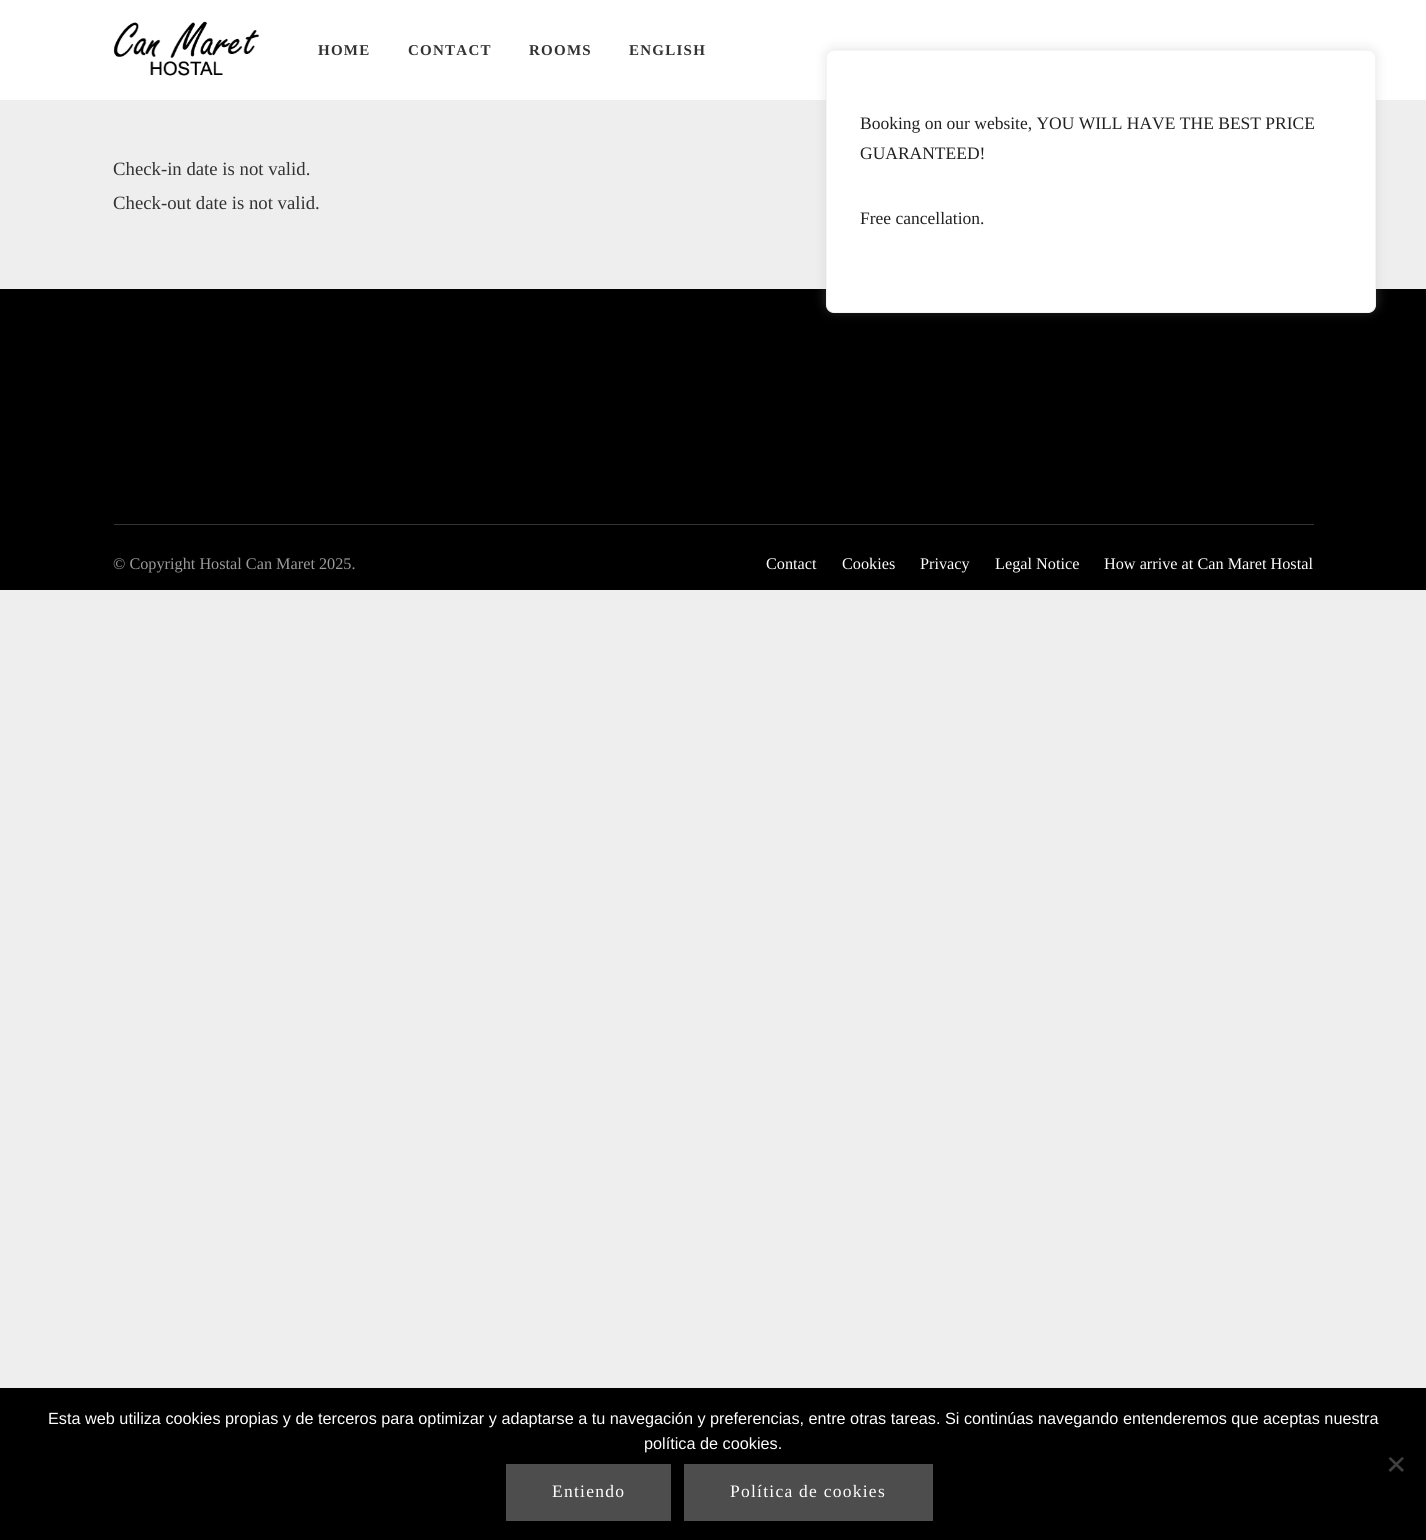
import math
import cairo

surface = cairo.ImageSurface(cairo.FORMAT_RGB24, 1426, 1540)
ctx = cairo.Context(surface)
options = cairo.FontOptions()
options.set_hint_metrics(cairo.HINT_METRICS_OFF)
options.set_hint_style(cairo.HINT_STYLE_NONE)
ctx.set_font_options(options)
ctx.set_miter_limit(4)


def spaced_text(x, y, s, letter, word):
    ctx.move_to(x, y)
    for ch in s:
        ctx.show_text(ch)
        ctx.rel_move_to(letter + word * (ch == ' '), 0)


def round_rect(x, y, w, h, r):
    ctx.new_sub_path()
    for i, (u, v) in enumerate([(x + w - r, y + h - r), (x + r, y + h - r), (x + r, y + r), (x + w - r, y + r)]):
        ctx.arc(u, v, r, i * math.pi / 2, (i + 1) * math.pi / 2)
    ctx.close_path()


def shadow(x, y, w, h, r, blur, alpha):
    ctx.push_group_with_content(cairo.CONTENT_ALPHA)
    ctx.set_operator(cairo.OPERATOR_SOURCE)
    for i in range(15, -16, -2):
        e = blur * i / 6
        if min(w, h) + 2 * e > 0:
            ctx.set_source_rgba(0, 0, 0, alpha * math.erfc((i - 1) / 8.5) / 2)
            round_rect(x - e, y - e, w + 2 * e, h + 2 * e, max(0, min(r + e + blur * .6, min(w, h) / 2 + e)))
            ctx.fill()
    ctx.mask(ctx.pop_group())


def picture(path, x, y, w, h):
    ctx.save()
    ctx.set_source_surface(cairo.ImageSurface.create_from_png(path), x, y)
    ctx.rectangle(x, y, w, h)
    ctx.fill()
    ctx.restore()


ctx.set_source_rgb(0.933, 0.933, 0.933)
ctx.paint()
ctx.set_source_rgb(1, 1, 1)
ctx.rectangle(0, 0, 1426, 100)
ctx.fill()
picture("img1.png", 113, 21, 146, 55)
ctx.select_font_face("Liberation Serif", cairo.FONT_SLANT_NORMAL, cairo.FONT_WEIGHT_BOLD)
ctx.set_font_size(15)
ctx.set_source_rgb(0.2, 0.2, 0.2)
spaced_text(318, 55, "HOME", 1.25, 0)
spaced_text(408, 55, "CONTACT", 1.25, 0)
spaced_text(529, 55, "ROOMS", 1.25, 0)
spaced_text(629, 55, "ENGLISH", 1.25, 0)
ctx.select_font_face("Liberation Serif")
ctx.set_font_size(18.75)
ctx.move_to(113, 175)
ctx.show_text("Check-in date is not valid.")
ctx.move_to(113, 209)
ctx.show_text("Check-out date is not valid.")
ctx.set_source_rgb(0, 0, 0)
ctx.rectangle(0, 289, 1426, 301)
ctx.fill()
ctx.set_source_rgb(0.2, 0.2, 0.2)
ctx.rectangle(114, 524, 1200, 1)
ctx.fill()
ctx.set_font_size(16.25)
ctx.set_source_rgb(0.608, 0.608, 0.608)
ctx.move_to(113, 569)
ctx.show_text("© Copyright Hostal Can Maret 2025.")
ctx.set_source_rgb(1, 1, 1)
ctx.move_to(766, 569)
ctx.show_text("Contact")
ctx.move_to(842, 569)
ctx.show_text("Cookies")
ctx.move_to(920, 569)
ctx.show_text("Privacy")
ctx.move_to(995, 569)
ctx.show_text("Legal Notice")
ctx.move_to(1104, 569)
ctx.show_text("How arrive at Can Maret Hostal")
ctx.set_source_rgb(0.675, 0.671, 0.671)
shadow(826, 49, 550, 262, 8, 6, 0.3)
ctx.set_source_rgb(1, 1, 1)
round_rect(826.5, 50.5, 549, 262, 7.5)
ctx.fill_preserve()
ctx.set_source_rgb(0.957, 0.957, 0.957)
ctx.set_line_width(1)
ctx.stroke()
ctx.set_font_size(17.5)
ctx.set_source_rgb(0.129, 0.129, 0.129)
ctx.move_to(860, 129)
ctx.show_text("Booking on our website, YOU WILL HAVE THE BEST PRICE")
ctx.move_to(860, 159)
ctx.show_text("GUARANTEED!")
ctx.move_to(860, 224)
ctx.show_text("Free cancellation.")
ctx.set_source_rgb(0, 0, 0)
ctx.rectangle(0, 1388, 1426, 152)
ctx.fill()
ctx.select_font_face("Liberation Sans")
ctx.set_font_size(16.25)
ctx.set_source_rgb(1, 1, 1)
ctx.move_to(48, 1424)
ctx.show_text("Esta web utiliza cookies propias y de terceros para optimizar y adaptarse a tu navegación y preferencias, entre otras tareas. Si continúas navegando entenderemos que aceptas nuestra")
ctx.move_to(644, 1449)
ctx.show_text("política de cookies.")
ctx.set_source_rgb(0.251, 0.251, 0.251)
ctx.new_path()
ctx.move_to(1402, 1457)
ctx.line_to(1404, 1458.5)
ctx.line_to(1390.5, 1472)
ctx.line_to(1388.5, 1470)
ctx.close_path()
ctx.fill()
ctx.new_path()
ctx.move_to(1388.5, 1458.5)
ctx.line_to(1390.5, 1457)
ctx.line_to(1404, 1470)
ctx.line_to(1402, 1472)
ctx.close_path()
ctx.fill()
ctx.set_source_rgb(0.302, 0.302, 0.302)
ctx.rectangle(506, 1464, 165, 57)
ctx.fill()
ctx.select_font_face("Liberation Serif")
ctx.set_font_size(17.5)
ctx.set_source_rgb(1, 1, 1)
spaced_text(552, 1497, "Entiendo", 1.25, 0)
ctx.set_source_rgb(0.302, 0.302, 0.302)
ctx.rectangle(684, 1464, 249, 57)
ctx.fill()
ctx.set_source_rgb(1, 1, 1)
spaced_text(730, 1497, "Política de cookies", 1.25, 0)
surface.write_to_png("page.png")
